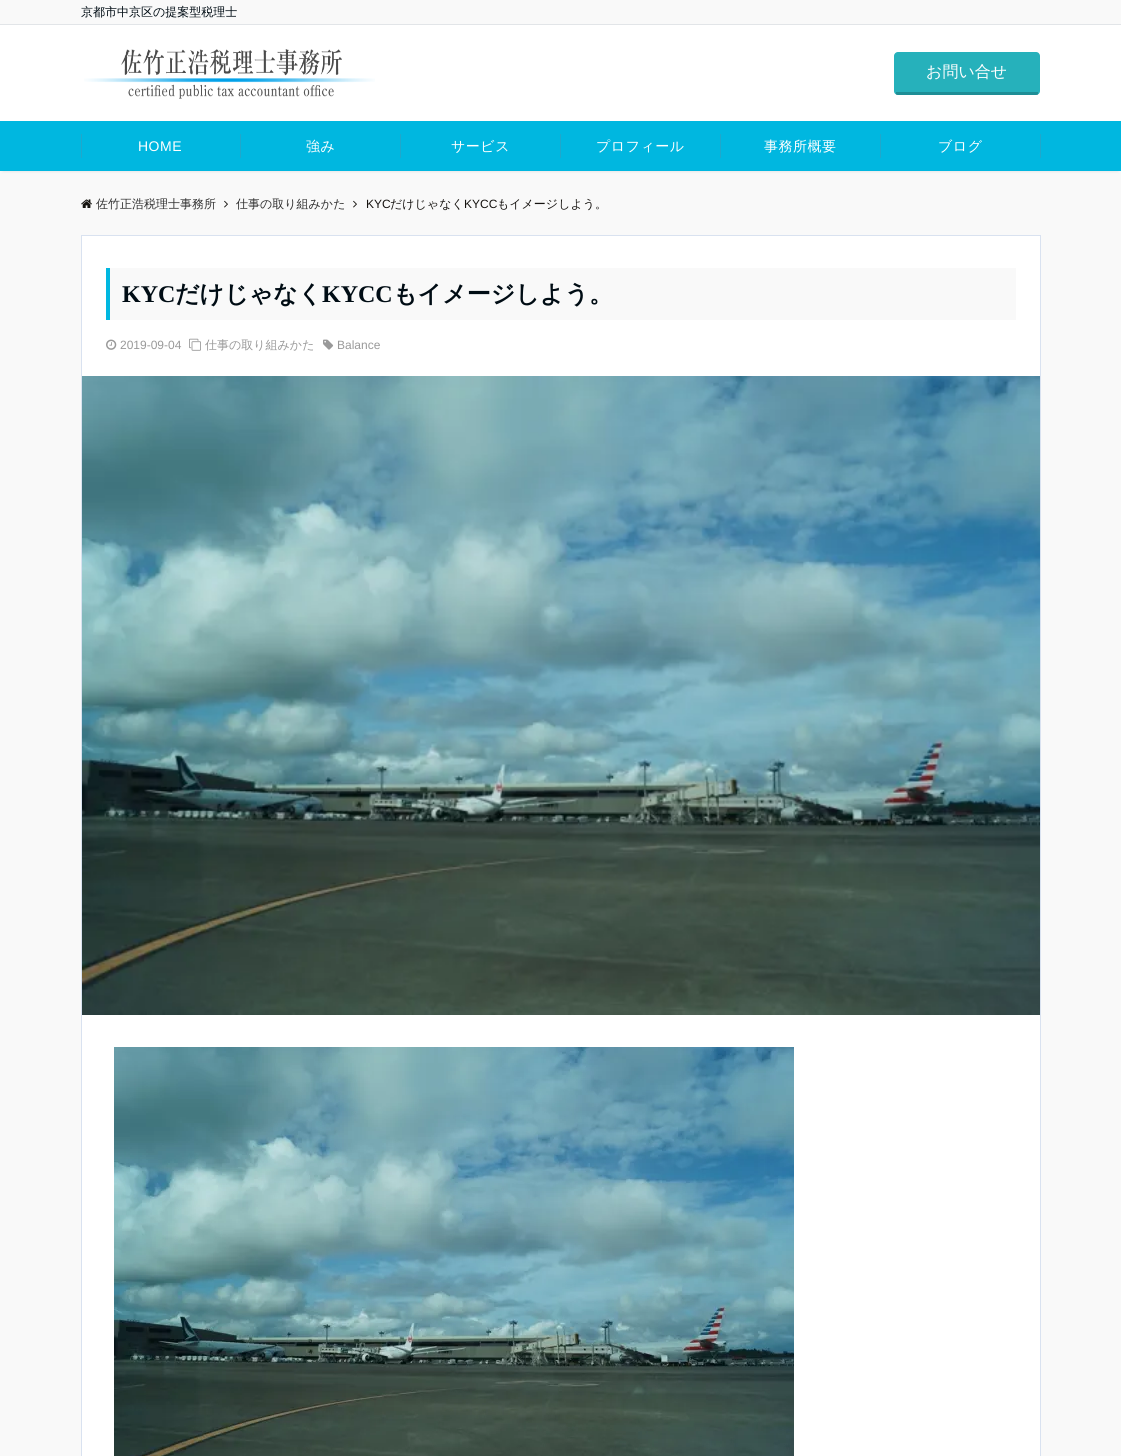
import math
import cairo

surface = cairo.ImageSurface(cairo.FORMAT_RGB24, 1121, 1456)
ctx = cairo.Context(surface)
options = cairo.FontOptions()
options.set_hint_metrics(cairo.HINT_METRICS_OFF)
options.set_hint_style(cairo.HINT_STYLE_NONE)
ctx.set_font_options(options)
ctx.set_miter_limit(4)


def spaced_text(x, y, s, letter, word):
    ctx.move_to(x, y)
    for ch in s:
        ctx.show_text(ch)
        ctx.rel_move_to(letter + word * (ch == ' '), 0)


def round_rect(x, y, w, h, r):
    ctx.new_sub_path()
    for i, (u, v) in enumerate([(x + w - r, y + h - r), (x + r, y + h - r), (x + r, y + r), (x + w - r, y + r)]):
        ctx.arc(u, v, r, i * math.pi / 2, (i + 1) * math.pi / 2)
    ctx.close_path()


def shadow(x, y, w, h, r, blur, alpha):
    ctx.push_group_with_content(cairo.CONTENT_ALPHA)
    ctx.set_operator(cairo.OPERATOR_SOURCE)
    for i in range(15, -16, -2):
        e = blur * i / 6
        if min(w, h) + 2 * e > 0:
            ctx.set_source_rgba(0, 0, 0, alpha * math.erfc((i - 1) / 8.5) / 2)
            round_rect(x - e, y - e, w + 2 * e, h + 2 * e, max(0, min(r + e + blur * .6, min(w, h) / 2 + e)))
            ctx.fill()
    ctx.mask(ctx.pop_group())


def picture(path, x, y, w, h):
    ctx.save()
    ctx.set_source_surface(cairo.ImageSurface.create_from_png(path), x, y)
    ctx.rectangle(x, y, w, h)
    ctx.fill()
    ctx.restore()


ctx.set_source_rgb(0.973, 0.973, 0.973)
ctx.paint()
ctx.set_source_rgb(0.886, 0.898, 0.91)
ctx.rectangle(0, 24, 1121, 1)
ctx.fill()
ctx.select_font_face("WenQuanYi Zen Hei Medium")
ctx.set_font_size(12)
ctx.set_source_rgb(0, 0.047, 0.082)
ctx.move_to(81, 16)
ctx.show_text("京都市中京区の提案型税理士")
ctx.set_source_rgb(1, 1, 1)
ctx.rectangle(0, 25, 1121, 96)
ctx.fill()
picture("img1.png", 84, 49, 291, 50)
ctx.set_source_rgb(0.149, 0.694, 0.733)
round_rect(894, 52, 146, 43, 4)
ctx.fill()
ctx.set_source_rgba(0, 0, 0, 0.2)
ctx.rectangle(896, 92, 142, 3)
ctx.fill()
ctx.set_font_size(16)
ctx.set_source_rgb(1, 1, 1)
ctx.move_to(926, 77)
ctx.show_text("お問い合せ")
ctx.set_source_rgb(0, 0, 0)
shadow(3, 126, 1115, 44, 0, 2, 0.2)
ctx.set_source_rgb(0, 0.718, 0.878)
ctx.rectangle(0, 121, 1121, 50)
ctx.fill()
ctx.set_source_rgb(0.125, 0.655, 0.796)
ctx.rectangle(81, 134, 1, 24)
ctx.fill()
ctx.select_font_face("Liberation Sans")
ctx.set_font_size(14)
ctx.set_source_rgb(1, 1, 1)
spaced_text(138, 151, "HOME", 0.5, 0)
ctx.set_source_rgb(0.125, 0.655, 0.796)
ctx.rectangle(240, 134, 1, 24)
ctx.fill()
ctx.select_font_face("WenQuanYi Zen Hei Medium")
ctx.set_source_rgb(1, 1, 1)
spaced_text(306, 151, "強み", 0.5, 0)
ctx.set_source_rgb(0.125, 0.655, 0.796)
ctx.rectangle(400, 134, 1, 24)
ctx.fill()
ctx.set_source_rgb(1, 1, 1)
spaced_text(451, 151, "サービス", 0.5, 0)
ctx.set_source_rgb(0.125, 0.655, 0.796)
ctx.rectangle(560, 134, 1, 24)
ctx.fill()
ctx.set_source_rgb(1, 1, 1)
spaced_text(596, 151, "プロフィール", 0.5, 0)
ctx.set_source_rgb(0.125, 0.655, 0.796)
ctx.rectangle(720, 134, 1, 24)
ctx.fill()
ctx.set_source_rgb(1, 1, 1)
spaced_text(764, 151, "事務所概要", 0.5, 0)
ctx.set_source_rgb(0.125, 0.655, 0.796)
ctx.rectangle(880, 134, 1, 24)
ctx.fill()
ctx.set_source_rgb(1, 1, 1)
spaced_text(938, 151, "ブログ", 0.5, 0)
ctx.set_source_rgb(0.125, 0.655, 0.796)
ctx.rectangle(1040, 134, 1, 24)
ctx.fill()
picture("img2.png", 81, 199, 11, 9)
ctx.set_font_size(12)
ctx.set_source_rgb(0.188, 0.188, 0.188)
ctx.move_to(96, 208)
ctx.show_text("佐竹正浩税理士事務所")
picture("img3.png", 224, 200, 4, 8)
ctx.move_to(236, 208)
ctx.show_text("仕事の取り組みかた")
picture("img3.png", 353, 200, 4, 8)
ctx.select_font_face("Liberation Sans")
ctx.set_source_rgb(0.086, 0.078, 0.063)
ctx.move_to(366, 208)
ctx.show_text("KYC")
ctx.select_font_face("WenQuanYi Zen Hei Medium")
ctx.move_to(390, 208)
ctx.show_text("だけじゃなく")
ctx.select_font_face("Liberation Sans")
ctx.move_to(464, 208)
ctx.show_text("KYCC")
ctx.select_font_face("WenQuanYi Zen Hei Medium")
ctx.move_to(497, 208)
ctx.show_text("もイメージしよう。")
ctx.set_source_rgb(1, 1, 1)
ctx.rectangle(81.5, 235.5, 959, 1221)
ctx.fill_preserve()
ctx.set_source_rgb(0.851, 0.886, 0.941)
ctx.set_line_width(1)
ctx.stroke()
ctx.set_source_rgb(0.973, 0.973, 0.976)
ctx.rectangle(110, 268, 906, 52)
ctx.fill()
ctx.set_source_rgb(0, 0.718, 0.878)
ctx.rectangle(106, 268, 4, 52)
ctx.fill()
ctx.select_font_face("Liberation Serif", cairo.FONT_SLANT_NORMAL, cairo.FONT_WEIGHT_BOLD)
ctx.set_font_size(24)
ctx.set_source_rgb(0, 0.047, 0.082)
ctx.move_to(122, 302)
ctx.show_text("KYC")
ctx.select_font_face("WenQuanYi Zen Hei", cairo.FONT_SLANT_NORMAL, cairo.FONT_WEIGHT_BOLD)
ctx.move_to(175, 302)
ctx.show_text("だけじゃなく")
ctx.select_font_face("Liberation Serif", cairo.FONT_SLANT_NORMAL, cairo.FONT_WEIGHT_BOLD)
ctx.move_to(322, 302)
ctx.show_text("KYCC")
ctx.select_font_face("WenQuanYi Zen Hei", cairo.FONT_SLANT_NORMAL, cairo.FONT_WEIGHT_BOLD)
ctx.move_to(393, 302)
ctx.show_text("もイメージしよう。")
picture("img4.png", 106, 339, 11, 11)
ctx.select_font_face("Liberation Sans")
ctx.set_font_size(12)
ctx.set_source_rgb(0.6, 0.6, 0.6)
ctx.move_to(120, 349)
ctx.show_text("2019-09-04")
picture("img5.png", 189, 338, 12, 13)
ctx.select_font_face("WenQuanYi Zen Hei Medium")
ctx.move_to(205, 349)
ctx.show_text("仕事の取り組みかた")
picture("img6.png", 323, 339, 11, 11)
ctx.select_font_face("Liberation Sans")
ctx.move_to(337, 349)
ctx.show_text("Balance")
picture("img7.png", 82, 376, 958, 639)
picture("img8.png", 114, 1047, 680, 409)
surface.write_to_png("page.png")
